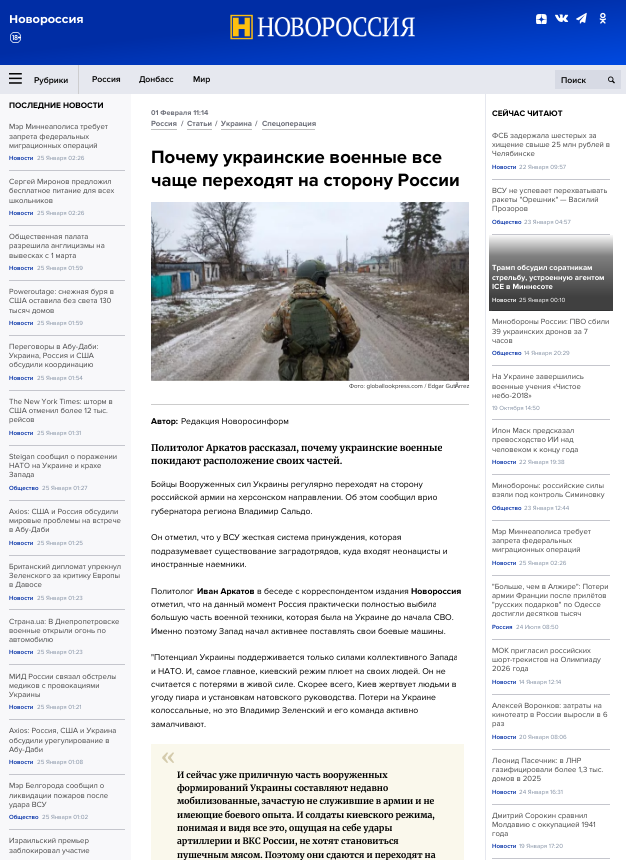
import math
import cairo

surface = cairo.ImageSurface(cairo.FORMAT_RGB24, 626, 860)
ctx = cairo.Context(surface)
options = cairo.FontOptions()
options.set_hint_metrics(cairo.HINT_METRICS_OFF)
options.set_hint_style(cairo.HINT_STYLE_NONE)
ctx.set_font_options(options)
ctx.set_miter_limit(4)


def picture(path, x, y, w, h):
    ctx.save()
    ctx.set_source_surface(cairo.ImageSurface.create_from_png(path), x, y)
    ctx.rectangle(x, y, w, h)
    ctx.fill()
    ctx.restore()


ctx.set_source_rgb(1, 1, 1)
ctx.paint()
ctx.set_source_rgb(0.251, 0.251, 0.251)
ctx.rectangle(489, 297, 124, 14)
ctx.fill()
gradient = cairo.LinearGradient(306, -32, 320, 97)
gradient.add_color_stop_rgba(0.4, 0, 0.176, 0.647, 1)
gradient.add_color_stop_rgba(1, 0, 0.286, 0.875, 1)
ctx.set_source(gradient)
ctx.rectangle(0, 0, 626, 65)
ctx.fill()
ctx.select_font_face("Montserrat", cairo.FONT_SLANT_NORMAL, cairo.FONT_WEIGHT_BOLD)
ctx.set_font_size(11.25)
ctx.set_source_rgb(1, 1, 1)
ctx.move_to(9, 23)
ctx.show_text("Новороссия")
picture("img1.png", 230, 14, 185, 26)
picture("img2.png", 536, 14, 11, 10)
picture("img3.png", 555, 14, 14, 8)
picture("img4.png", 576, 12, 11, 12)
picture("img5.png", 599, 12, 7, 12)
picture("img6.png", 10, 32, 11, 11)
ctx.set_source_rgb(0.902, 0.91, 0.937)
ctx.rectangle(0, 65, 626, 29)
ctx.fill()
ctx.set_source_rgb(0.804, 0.804, 0.812)
ctx.rectangle(78, 65, 1, 29)
ctx.fill()
picture("img7.png", 9, 73, 13, 11)
ctx.select_font_face("Proxima Nova SemiBold")
ctx.set_font_size(8.7)
ctx.set_source_rgb(0, 0, 0)
ctx.move_to(34, 83)
ctx.show_text("Рубрики")
ctx.move_to(92, 82)
ctx.show_text("Россия")
ctx.move_to(139, 82)
ctx.show_text("Донбасс")
ctx.move_to(193, 82)
ctx.show_text("Мир")
ctx.set_source_rgb(0.843, 0.855, 0.894)
ctx.rectangle(555, 70, 66, 19)
ctx.fill()
ctx.set_source_rgb(0, 0, 0)
ctx.move_to(561, 83)
ctx.show_text("Поиск")
picture("img8.png", 608, 76, 7, 8)
ctx.set_source_rgb(0.969, 0.969, 0.98)
ctx.rectangle(0, 94, 131, 766)
ctx.fill()
ctx.select_font_face("Proxima Nova", cairo.FONT_SLANT_NORMAL, cairo.FONT_WEIGHT_BOLD)
ctx.set_font_size(8.25)
ctx.set_source_rgb(0, 0, 0)
ctx.move_to(9, 108)
ctx.show_text("ПОСЛЕДНИЕ НОВОСТИ")
ctx.set_source_rgb(0.773, 0.776, 0.804)
ctx.rectangle(9, 170, 116, 1)
ctx.fill()
ctx.select_font_face("Proxima Nova")
ctx.set_font_size(7.75)
ctx.set_source_rgb(0.282, 0.282, 0.282)
ctx.move_to(9, 129)
ctx.show_text("Мэр Миннеаполиса требует")
ctx.move_to(9, 139)
ctx.show_text("запрета федеральных")
ctx.move_to(9, 148)
ctx.show_text("миграционных операций")
ctx.select_font_face("Proxima Nova SemiBold")
ctx.set_font_size(6.2)
ctx.set_source_rgb(0, 0.176, 0.647)
ctx.move_to(9, 160)
ctx.show_text("Новости")
ctx.select_font_face("Proxima Nova")
ctx.set_source_rgb(0.522, 0.573, 0.647)
ctx.move_to(37, 160)
ctx.show_text("25 Января 02:26")
ctx.set_source_rgb(0.773, 0.776, 0.804)
ctx.rectangle(9, 225, 116, 1)
ctx.fill()
ctx.set_font_size(7.75)
ctx.set_source_rgb(0.282, 0.282, 0.282)
ctx.move_to(9, 184)
ctx.show_text("Сергей Миронов предложил")
ctx.move_to(9, 193)
ctx.show_text("бесплатное питание для всех")
ctx.move_to(9, 203)
ctx.show_text("школьников")
ctx.select_font_face("Proxima Nova SemiBold")
ctx.set_font_size(6.2)
ctx.set_source_rgb(0, 0.176, 0.647)
ctx.move_to(9, 215)
ctx.show_text("Новости")
ctx.select_font_face("Proxima Nova")
ctx.set_source_rgb(0.522, 0.573, 0.647)
ctx.move_to(37, 215)
ctx.show_text("25 Января 02:26")
ctx.set_source_rgb(0.773, 0.776, 0.804)
ctx.rectangle(9, 280, 116, 1)
ctx.fill()
ctx.set_font_size(7.75)
ctx.set_source_rgb(0.282, 0.282, 0.282)
ctx.move_to(9, 239)
ctx.show_text("Общественная палата")
ctx.move_to(9, 248)
ctx.show_text("разрешила англицизмы на")
ctx.move_to(9, 258)
ctx.show_text("вывесках с 1 марта")
ctx.select_font_face("Proxima Nova SemiBold")
ctx.set_font_size(6.2)
ctx.set_source_rgb(0, 0.176, 0.647)
ctx.move_to(9, 270)
ctx.show_text("Новости")
ctx.select_font_face("Proxima Nova")
ctx.set_source_rgb(0.522, 0.573, 0.647)
ctx.move_to(37, 270)
ctx.show_text("25 Января 01:59")
ctx.set_source_rgb(0.773, 0.776, 0.804)
ctx.rectangle(9, 335, 116, 1)
ctx.fill()
ctx.set_font_size(7.75)
ctx.set_source_rgb(0.282, 0.282, 0.282)
ctx.move_to(9, 294)
ctx.show_text("Poweroutage: снежная буря в")
ctx.move_to(9, 303)
ctx.show_text("США оставила без света 130")
ctx.move_to(9, 313)
ctx.show_text("тысяч домов")
ctx.select_font_face("Proxima Nova SemiBold")
ctx.set_font_size(6.2)
ctx.set_source_rgb(0, 0.176, 0.647)
ctx.move_to(9, 325)
ctx.show_text("Новости")
ctx.select_font_face("Proxima Nova")
ctx.set_source_rgb(0.522, 0.573, 0.647)
ctx.move_to(37, 325)
ctx.show_text("25 Января 01:59")
ctx.set_source_rgb(0.773, 0.776, 0.804)
ctx.rectangle(9, 390, 116, 1)
ctx.fill()
ctx.set_font_size(7.75)
ctx.set_source_rgb(0.282, 0.282, 0.282)
ctx.move_to(9, 349)
ctx.show_text("Переговоры в Абу-Даби:")
ctx.move_to(9, 358)
ctx.show_text("Украина, Россия и США")
ctx.move_to(9, 367)
ctx.show_text("обсудили координацию")
ctx.select_font_face("Proxima Nova SemiBold")
ctx.set_font_size(6.2)
ctx.set_source_rgb(0, 0.176, 0.647)
ctx.move_to(9, 380)
ctx.show_text("Новости")
ctx.select_font_face("Proxima Nova")
ctx.set_source_rgb(0.522, 0.573, 0.647)
ctx.move_to(37, 380)
ctx.show_text("25 Января 01:54")
ctx.set_source_rgb(0.773, 0.776, 0.804)
ctx.rectangle(9, 445, 116, 1)
ctx.fill()
ctx.set_font_size(7.75)
ctx.set_source_rgb(0.282, 0.282, 0.282)
ctx.move_to(9, 404)
ctx.show_text("The New York Times: шторм в")
ctx.move_to(9, 413)
ctx.show_text("США отменил более 12 тыс.")
ctx.move_to(9, 422)
ctx.show_text("рейсов")
ctx.select_font_face("Proxima Nova SemiBold")
ctx.set_font_size(6.2)
ctx.set_source_rgb(0, 0.176, 0.647)
ctx.move_to(9, 435)
ctx.show_text("Новости")
ctx.select_font_face("Proxima Nova")
ctx.set_source_rgb(0.522, 0.573, 0.647)
ctx.move_to(37, 435)
ctx.show_text("25 Января 01:31")
ctx.set_source_rgb(0.773, 0.776, 0.804)
ctx.rectangle(9, 500, 116, 1)
ctx.fill()
ctx.set_font_size(7.75)
ctx.set_source_rgb(0.282, 0.282, 0.282)
ctx.move_to(9, 459)
ctx.show_text("Steigan сообщил о поражении")
ctx.move_to(9, 468)
ctx.show_text("НАТО на Украине и крахе")
ctx.move_to(9, 477)
ctx.show_text("Запада")
ctx.select_font_face("Proxima Nova SemiBold")
ctx.set_font_size(6.2)
ctx.set_source_rgb(0, 0.176, 0.647)
ctx.move_to(9, 490)
ctx.show_text("Общество")
ctx.select_font_face("Proxima Nova")
ctx.set_source_rgb(0.522, 0.573, 0.647)
ctx.move_to(42, 490)
ctx.show_text("25 Января 01:27")
ctx.set_source_rgb(0.773, 0.776, 0.804)
ctx.rectangle(9, 555, 116, 1)
ctx.fill()
ctx.set_font_size(7.75)
ctx.set_source_rgb(0.282, 0.282, 0.282)
ctx.move_to(9, 514)
ctx.show_text("Axios: США и Россия обсудили")
ctx.move_to(9, 523)
ctx.show_text("мировые проблемы на встрече")
ctx.move_to(9, 532)
ctx.show_text("в Абу-Даби")
ctx.select_font_face("Proxima Nova SemiBold")
ctx.set_font_size(6.2)
ctx.set_source_rgb(0, 0.176, 0.647)
ctx.move_to(9, 545)
ctx.show_text("Новости")
ctx.select_font_face("Proxima Nova")
ctx.set_source_rgb(0.522, 0.573, 0.647)
ctx.move_to(37, 545)
ctx.show_text("25 Января 01:25")
ctx.set_source_rgb(0.773, 0.776, 0.804)
ctx.rectangle(9, 609, 116, 1)
ctx.fill()
ctx.set_font_size(7.75)
ctx.set_source_rgb(0.282, 0.282, 0.282)
ctx.move_to(9, 569)
ctx.show_text("Британский дипломат упрекнул")
ctx.move_to(9, 578)
ctx.show_text("Зеленского за критику Европы")
ctx.move_to(9, 587)
ctx.show_text("в Давосе")
ctx.select_font_face("Proxima Nova SemiBold")
ctx.set_font_size(6.2)
ctx.set_source_rgb(0, 0.176, 0.647)
ctx.move_to(9, 600)
ctx.show_text("Новости")
ctx.select_font_face("Proxima Nova")
ctx.set_source_rgb(0.522, 0.573, 0.647)
ctx.move_to(37, 600)
ctx.show_text("25 Января 01:23")
ctx.set_source_rgb(0.773, 0.776, 0.804)
ctx.rectangle(9, 664, 116, 1)
ctx.fill()
ctx.set_font_size(7.75)
ctx.set_source_rgb(0.282, 0.282, 0.282)
ctx.move_to(9, 624)
ctx.show_text("Страна.ua: В Днепропетровске")
ctx.move_to(9, 633)
ctx.show_text("военные открыли огонь по")
ctx.move_to(9, 642)
ctx.show_text("автомобилю")
ctx.select_font_face("Proxima Nova SemiBold")
ctx.set_font_size(6.2)
ctx.set_source_rgb(0, 0.176, 0.647)
ctx.move_to(9, 654)
ctx.show_text("Новости")
ctx.select_font_face("Proxima Nova")
ctx.set_source_rgb(0.522, 0.573, 0.647)
ctx.move_to(37, 654)
ctx.show_text("25 Января 01:23")
ctx.set_source_rgb(0.773, 0.776, 0.804)
ctx.rectangle(9, 719, 116, 1)
ctx.fill()
ctx.set_font_size(7.75)
ctx.set_source_rgb(0.282, 0.282, 0.282)
ctx.move_to(9, 679)
ctx.show_text("МИД России связал обстрелы")
ctx.move_to(9, 688)
ctx.show_text("медиков с провокациями")
ctx.move_to(9, 697)
ctx.show_text("Украины")
ctx.select_font_face("Proxima Nova SemiBold")
ctx.set_font_size(6.2)
ctx.set_source_rgb(0, 0.176, 0.647)
ctx.move_to(9, 709)
ctx.show_text("Новости")
ctx.select_font_face("Proxima Nova")
ctx.set_source_rgb(0.522, 0.573, 0.647)
ctx.move_to(37, 709)
ctx.show_text("25 Января 01:21")
ctx.set_source_rgb(0.773, 0.776, 0.804)
ctx.rectangle(9, 774, 116, 1)
ctx.fill()
ctx.set_font_size(7.75)
ctx.set_source_rgb(0.282, 0.282, 0.282)
ctx.move_to(9, 733)
ctx.show_text("Axios: Россия, США и Украина")
ctx.move_to(9, 743)
ctx.show_text("обсудили урегулирование в")
ctx.move_to(9, 752)
ctx.show_text("Абу-Даби")
ctx.select_font_face("Proxima Nova SemiBold")
ctx.set_font_size(6.2)
ctx.set_source_rgb(0, 0.176, 0.647)
ctx.move_to(9, 764)
ctx.show_text("Новости")
ctx.select_font_face("Proxima Nova")
ctx.set_source_rgb(0.522, 0.573, 0.647)
ctx.move_to(37, 764)
ctx.show_text("25 Января 01:08")
ctx.set_source_rgb(0.773, 0.776, 0.804)
ctx.rectangle(9, 829, 116, 1)
ctx.fill()
ctx.set_font_size(7.75)
ctx.set_source_rgb(0.282, 0.282, 0.282)
ctx.move_to(9, 788)
ctx.show_text("Мэр Белгорода сообщил о")
ctx.move_to(9, 798)
ctx.show_text("ликвидации пожаров после")
ctx.move_to(9, 807)
ctx.show_text("удара ВСУ")
ctx.select_font_face("Proxima Nova SemiBold")
ctx.set_font_size(6.2)
ctx.set_source_rgb(0, 0.176, 0.647)
ctx.move_to(9, 819)
ctx.show_text("Общество")
ctx.select_font_face("Proxima Nova")
ctx.set_source_rgb(0.522, 0.573, 0.647)
ctx.move_to(42, 819)
ctx.show_text("25 Января 01:02")
ctx.set_font_size(7.75)
ctx.set_source_rgb(0.282, 0.282, 0.282)
ctx.move_to(9, 843)
ctx.show_text("Израильский премьер")
ctx.move_to(9, 853)
ctx.show_text("заблокировал участие")
ctx.select_font_face("Proxima Nova", cairo.FONT_SLANT_NORMAL, cairo.FONT_WEIGHT_BOLD)
ctx.set_font_size(7.25)
ctx.set_source_rgb(0.431, 0.439, 0.478)
ctx.move_to(151, 115)
ctx.show_text("01 Февраля 11:14")
ctx.set_source_rgb(0.749, 0.749, 0.749)
ctx.rectangle(151, 129, 26, 1)
ctx.fill()
ctx.set_font_size(7.75)
ctx.set_source_rgb(0.431, 0.439, 0.478)
ctx.move_to(151, 126)
ctx.show_text("Россия")
ctx.move_to(181, 126)
ctx.show_text("/")
ctx.set_source_rgb(0.749, 0.749, 0.749)
ctx.rectangle(187, 129, 25, 1)
ctx.fill()
ctx.set_source_rgb(0.431, 0.439, 0.478)
ctx.move_to(187, 126)
ctx.show_text("Статьи")
ctx.move_to(215, 126)
ctx.show_text("/")
ctx.set_source_rgb(0.749, 0.749, 0.749)
ctx.rectangle(221, 129, 31, 1)
ctx.fill()
ctx.set_source_rgb(0.431, 0.439, 0.478)
ctx.move_to(221, 126)
ctx.show_text("Украина")
ctx.move_to(255, 126)
ctx.show_text("/")
ctx.set_source_rgb(0.749, 0.749, 0.749)
ctx.rectangle(262, 129, 53, 1)
ctx.fill()
ctx.set_source_rgb(0.431, 0.439, 0.478)
ctx.move_to(262, 126)
ctx.show_text("Спецоперация")
ctx.set_font_size(18.5)
ctx.set_source_rgb(0, 0, 0)
ctx.move_to(151, 163)
ctx.show_text("Почему украинские военные все")
ctx.move_to(151, 186)
ctx.show_text("чаще переходят на сторону России")
ctx.set_source_rgb(0.8, 0.8, 0.8)
ctx.rectangle(151, 404, 318, 1)
ctx.fill()
picture("img9.png", 151, 202, 318, 179)
ctx.select_font_face("Proxima Nova")
ctx.set_font_size(6.2)
ctx.set_source_rgb(0.2, 0.2, 0.2)
ctx.move_to(349, 388)
ctx.show_text("Фото: globallookpress.com / Edgar Guti")
ctx.select_font_face("Liberation Sans")
ctx.move_to(455, 388)
ctx.show_text("Ã")
ctx.select_font_face("Proxima Nova")
ctx.move_to(459, 388)
ctx.show_text("rrez")
ctx.select_font_face("Proxima Nova", cairo.FONT_SLANT_NORMAL, cairo.FONT_WEIGHT_BOLD)
ctx.set_font_size(8.7)
ctx.set_source_rgb(0, 0, 0)
ctx.move_to(151, 424)
ctx.show_text("Автор:")
ctx.select_font_face("Proxima Nova")
ctx.move_to(181, 424)
ctx.show_text("Редакция Новоросинформ")
ctx.select_font_face("Merriweather", cairo.FONT_SLANT_NORMAL, cairo.FONT_WEIGHT_BOLD)
ctx.set_font_size(9.25)
ctx.move_to(151, 451)
ctx.show_text("Политолог Аркатов рассказал, почему украинские военные")
ctx.move_to(151, 464)
ctx.show_text("покидают расположение своих частей.")
ctx.select_font_face("Proxima Nova")
ctx.set_font_size(8.7)
ctx.move_to(151, 487)
ctx.show_text("Бойцы Вооруженных сил Украины регулярно переходят на сторону")
ctx.move_to(151, 500)
ctx.show_text("российской армии на херсонском направлении. Об этом сообщил врио")
ctx.move_to(151, 514)
ctx.show_text("губернатора региона Владимир Сальдо.")
ctx.move_to(151, 540)
ctx.show_text("Он отметил, что у ВСУ жесткая система принуждения, которая")
ctx.move_to(151, 554)
ctx.show_text("подразумевает существование заградотрядов, куда входят неонацисты и")
ctx.move_to(151, 567)
ctx.show_text("иностранные наемники.")
ctx.move_to(151, 594)
ctx.show_text("Политолог")
ctx.select_font_face("Proxima Nova", cairo.FONT_SLANT_NORMAL, cairo.FONT_WEIGHT_BOLD)
ctx.move_to(197, 594)
ctx.show_text("Иван Аркатов")
ctx.select_font_face("Proxima Nova")
ctx.move_to(257, 594)
ctx.show_text("в беседе с корреспондентом издания")
ctx.select_font_face("Proxima Nova", cairo.FONT_SLANT_NORMAL, cairo.FONT_WEIGHT_BOLD)
ctx.move_to(411, 594)
ctx.show_text("Новороссия")
ctx.select_font_face("Proxima Nova")
ctx.move_to(151, 607)
ctx.show_text("отметил, что на данный момент Россия практически полностью выбила")
ctx.move_to(151, 620)
ctx.show_text("большую часть военной техники, которая была на Украине до начала СВО.")
ctx.move_to(151, 634)
ctx.show_text("Именно поэтому Запад начал активнее поставлять свои боевые машины.")
ctx.move_to(151, 660)
ctx.show_text("\"Потенциал Украины поддерживается только силами коллективного Запада")
ctx.move_to(151, 674)
ctx.show_text("и НАТО. И, самое главное, киевский режим плюет на своих людей. Он не")
ctx.move_to(151, 687)
ctx.show_text("считается с потерями в живой силе. Скорее всего, Киев жертвует людьми в")
ctx.move_to(151, 700)
ctx.show_text("угоду пиара и установкам натовского руководства. Потери на Украине")
ctx.move_to(151, 713)
ctx.show_text("колоссальные, но это Владимир Зеленский и его команда активно")
ctx.move_to(151, 727)
ctx.show_text("замалчивают.")
ctx.set_source_rgb(0.98, 0.969, 0.925)
ctx.rectangle(151, 744, 313, 116)
ctx.fill()
ctx.select_font_face("Merriweather", cairo.FONT_SLANT_NORMAL, cairo.FONT_WEIGHT_BOLD)
ctx.set_font_size(21)
ctx.set_source_rgb(0.831, 0.796, 0.675)
ctx.move_to(161, 764)
ctx.show_text("«")
ctx.set_font_size(8.7)
ctx.set_source_rgb(0, 0, 0)
ctx.move_to(177, 778)
ctx.show_text("И сейчас уже приличную часть вооруженных")
ctx.move_to(177, 791)
ctx.show_text("формирований Украины составляют недавно")
ctx.move_to(177, 804)
ctx.show_text("мобилизованные, зачастую не служившие в армии и не")
ctx.move_to(177, 818)
ctx.show_text("имеющие боевого опыта. И солдаты киевского режима,")
ctx.move_to(177, 831)
ctx.show_text("понимая и видя все это, ощущая на себе удары")
ctx.move_to(177, 844)
ctx.show_text("артиллерии и ВКС России, не хотят становиться")
ctx.move_to(177, 858)
ctx.show_text("пушечным мясом. Поэтому они сдаются и переходят на")
ctx.set_source_rgb(0.902, 0.91, 0.937)
ctx.rectangle(485, 94, 1, 766)
ctx.fill()
ctx.select_font_face("Proxima Nova", cairo.FONT_SLANT_NORMAL, cairo.FONT_WEIGHT_BOLD)
ctx.set_font_size(8.25)
ctx.set_source_rgb(0, 0, 0)
ctx.move_to(492, 116)
ctx.show_text("СЕЙЧАС ЧИТАЮТ")
ctx.set_source_rgb(0.773, 0.776, 0.804)
ctx.rectangle(492, 179, 118, 1)
ctx.fill()
ctx.select_font_face("Proxima Nova")
ctx.set_font_size(7.75)
ctx.set_source_rgb(0.282, 0.282, 0.282)
ctx.move_to(492, 138)
ctx.show_text("ФСБ задержала шестерых за")
ctx.move_to(492, 147)
ctx.show_text("хищение свыше 25 млн рублей в")
ctx.move_to(492, 156)
ctx.show_text("Челябинске")
ctx.select_font_face("Proxima Nova SemiBold")
ctx.set_font_size(6.2)
ctx.set_source_rgb(0, 0.176, 0.647)
ctx.move_to(492, 169)
ctx.show_text("Новости")
ctx.select_font_face("Proxima Nova")
ctx.set_source_rgb(0.522, 0.573, 0.647)
ctx.move_to(519, 169)
ctx.show_text("22 Января 09:57")
ctx.set_source_rgb(0.773, 0.776, 0.804)
ctx.rectangle(492, 234, 118, 1)
ctx.fill()
ctx.set_font_size(7.75)
ctx.set_source_rgb(0.282, 0.282, 0.282)
ctx.move_to(492, 193)
ctx.show_text("ВСУ не успевает перехватывать")
ctx.move_to(492, 202)
ctx.show_text("ракеты \"Орешник\" — Василий")
ctx.move_to(492, 211)
ctx.show_text("Прозоров")
ctx.select_font_face("Proxima Nova SemiBold")
ctx.set_font_size(6.2)
ctx.set_source_rgb(0, 0.176, 0.647)
ctx.move_to(492, 224)
ctx.show_text("Общество")
ctx.select_font_face("Proxima Nova")
ctx.set_source_rgb(0.522, 0.573, 0.647)
ctx.move_to(524, 224)
ctx.show_text("23 Января 04:57")
ctx.set_source_rgb(0.192, 0.196, 0.2)
ctx.rectangle(492, 310, 118, 1)
ctx.fill()
gradient = cairo.LinearGradient(551, 234, 551, 297)
gradient.add_color_stop_rgba(0, 0, 0, 0, 0)
gradient.add_color_stop_rgba(0.35, 0, 0, 0, 0.5)
gradient.add_color_stop_rgba(1, 0, 0, 0, 0.75)
ctx.set_source(gradient)
ctx.rectangle(489, 235, 124, 62)
ctx.fill()
ctx.select_font_face("Proxima Nova", cairo.FONT_SLANT_NORMAL, cairo.FONT_WEIGHT_BOLD)
ctx.set_font_size(7.75)
ctx.set_source_rgb(1, 1, 1)
ctx.move_to(492, 270)
ctx.show_text("Трамп обсудил соратникам")
ctx.move_to(492, 280)
ctx.show_text("стрельбу, устроенную агентом")
ctx.move_to(492, 289)
ctx.show_text("ICE в Миннесоте")
ctx.select_font_face("Proxima Nova SemiBold")
ctx.set_font_size(6.2)
ctx.move_to(492, 302)
ctx.show_text("Новости")
ctx.select_font_face("Proxima Nova")
ctx.move_to(519, 302)
ctx.show_text("25 Января 00:10")
ctx.set_source_rgb(0.773, 0.776, 0.804)
ctx.rectangle(492, 365, 118, 1)
ctx.fill()
ctx.set_font_size(7.75)
ctx.set_source_rgb(0.282, 0.282, 0.282)
ctx.move_to(492, 324)
ctx.show_text("Минобороны России: ПВО сбили")
ctx.move_to(492, 334)
ctx.show_text("39 украинских дронов за 7")
ctx.move_to(492, 343)
ctx.show_text("часов")
ctx.select_font_face("Proxima Nova SemiBold")
ctx.set_font_size(6.2)
ctx.set_source_rgb(0, 0.176, 0.647)
ctx.move_to(492, 355)
ctx.show_text("Общество")
ctx.select_font_face("Proxima Nova")
ctx.set_source_rgb(0.522, 0.573, 0.647)
ctx.move_to(524, 355)
ctx.show_text("14 Января 20:29")
ctx.set_source_rgb(0.773, 0.776, 0.804)
ctx.rectangle(492, 419, 118, 1)
ctx.fill()
ctx.set_font_size(7.75)
ctx.set_source_rgb(0.282, 0.282, 0.282)
ctx.move_to(492, 379)
ctx.show_text("На Украине завершились")
ctx.move_to(492, 389)
ctx.show_text("военные учения «Чистое")
ctx.move_to(492, 398)
ctx.show_text("небо-2018»")
ctx.set_font_size(6.2)
ctx.set_source_rgb(0.522, 0.573, 0.647)
ctx.move_to(492, 410)
ctx.show_text("19 Октября 14:50")
ctx.set_source_rgb(0.773, 0.776, 0.804)
ctx.rectangle(492, 474, 118, 1)
ctx.fill()
ctx.set_font_size(7.75)
ctx.set_source_rgb(0.282, 0.282, 0.282)
ctx.move_to(492, 433)
ctx.show_text("Илон Маск предсказал")
ctx.move_to(492, 442)
ctx.show_text("превосходство ИИ над")
ctx.move_to(492, 452)
ctx.show_text("человеком к концу года")
ctx.select_font_face("Proxima Nova SemiBold")
ctx.set_font_size(6.2)
ctx.set_source_rgb(0, 0.176, 0.647)
ctx.move_to(492, 464)
ctx.show_text("Новости")
ctx.select_font_face("Proxima Nova")
ctx.set_source_rgb(0.522, 0.573, 0.647)
ctx.move_to(519, 464)
ctx.show_text("22 Января 19:38")
ctx.set_source_rgb(0.773, 0.776, 0.804)
ctx.rectangle(492, 520, 118, 1)
ctx.fill()
ctx.set_font_size(7.75)
ctx.set_source_rgb(0.282, 0.282, 0.282)
ctx.move_to(492, 488)
ctx.show_text("Минобороны: российские силы")
ctx.move_to(492, 497)
ctx.show_text("взяли под контроль Симиновку")
ctx.select_font_face("Proxima Nova SemiBold")
ctx.set_font_size(6.2)
ctx.set_source_rgb(0, 0.176, 0.647)
ctx.move_to(492, 510)
ctx.show_text("Общество")
ctx.select_font_face("Proxima Nova")
ctx.set_source_rgb(0.522, 0.573, 0.647)
ctx.move_to(524, 510)
ctx.show_text("23 Января 12:44")
ctx.set_source_rgb(0.773, 0.776, 0.804)
ctx.rectangle(492, 575, 118, 1)
ctx.fill()
ctx.set_font_size(7.75)
ctx.set_source_rgb(0.282, 0.282, 0.282)
ctx.move_to(492, 534)
ctx.show_text("Мэр Миннеаполиса требует")
ctx.move_to(492, 543)
ctx.show_text("запрета федеральных")
ctx.move_to(492, 552)
ctx.show_text("миграционных операций")
ctx.select_font_face("Proxima Nova SemiBold")
ctx.set_font_size(6.2)
ctx.set_source_rgb(0, 0.176, 0.647)
ctx.move_to(492, 565)
ctx.show_text("Новости")
ctx.select_font_face("Proxima Nova")
ctx.set_source_rgb(0.522, 0.573, 0.647)
ctx.move_to(519, 565)
ctx.show_text("25 Января 02:26")
ctx.set_source_rgb(0.773, 0.776, 0.804)
ctx.rectangle(492, 639, 118, 1)
ctx.fill()
ctx.set_font_size(7.75)
ctx.set_source_rgb(0.282, 0.282, 0.282)
ctx.move_to(492, 589)
ctx.show_text("\"Больше, чем в Алжире\": Потери")
ctx.move_to(492, 598)
ctx.show_text("армии Франции после прилётов")
ctx.move_to(492, 607)
ctx.show_text("\"русских подарков\" по Одессе")
ctx.move_to(492, 616)
ctx.show_text("достигли десятков тысяч")
ctx.select_font_face("Proxima Nova SemiBold")
ctx.set_font_size(6.2)
ctx.set_source_rgb(0, 0.176, 0.647)
ctx.move_to(492, 629)
ctx.show_text("Россия")
ctx.select_font_face("Proxima Nova")
ctx.set_source_rgb(0.522, 0.573, 0.647)
ctx.move_to(516, 629)
ctx.show_text("24 Июля 08:50")
ctx.set_source_rgb(0.773, 0.776, 0.804)
ctx.rectangle(492, 694, 118, 1)
ctx.fill()
ctx.set_font_size(7.75)
ctx.set_source_rgb(0.282, 0.282, 0.282)
ctx.move_to(492, 653)
ctx.show_text("МОК пригласил российских")
ctx.move_to(492, 662)
ctx.show_text("шорт-трекистов на Олимпиаду")
ctx.move_to(492, 671)
ctx.show_text("2026 года")
ctx.select_font_face("Proxima Nova SemiBold")
ctx.set_font_size(6.2)
ctx.set_source_rgb(0, 0.176, 0.647)
ctx.move_to(492, 684)
ctx.show_text("Новости")
ctx.select_font_face("Proxima Nova")
ctx.set_source_rgb(0.522, 0.573, 0.647)
ctx.move_to(519, 684)
ctx.show_text("14 Января 12:14")
ctx.set_source_rgb(0.773, 0.776, 0.804)
ctx.rectangle(492, 749, 118, 1)
ctx.fill()
ctx.set_font_size(7.75)
ctx.set_source_rgb(0.282, 0.282, 0.282)
ctx.move_to(492, 708)
ctx.show_text("Алексей Воронков: затраты на")
ctx.move_to(492, 717)
ctx.show_text("кинотеатр в России выросли в 6")
ctx.move_to(492, 726)
ctx.show_text("раз")
ctx.select_font_face("Proxima Nova SemiBold")
ctx.set_font_size(6.2)
ctx.set_source_rgb(0, 0.176, 0.647)
ctx.move_to(492, 739)
ctx.show_text("Новости")
ctx.select_font_face("Proxima Nova")
ctx.set_source_rgb(0.522, 0.573, 0.647)
ctx.move_to(519, 739)
ctx.show_text("20 Января 08:06")
ctx.set_source_rgb(0.773, 0.776, 0.804)
ctx.rectangle(492, 804, 118, 1)
ctx.fill()
ctx.set_font_size(7.75)
ctx.set_source_rgb(0.282, 0.282, 0.282)
ctx.move_to(492, 763)
ctx.show_text("Леонид Пасечник: в ЛНР")
ctx.move_to(492, 772)
ctx.show_text("газифицировали более 1,3 тыс.")
ctx.move_to(492, 781)
ctx.show_text("домов в 2025")
ctx.select_font_face("Proxima Nova SemiBold")
ctx.set_font_size(6.2)
ctx.set_source_rgb(0, 0.176, 0.647)
ctx.move_to(492, 794)
ctx.show_text("Новости")
ctx.select_font_face("Proxima Nova")
ctx.set_source_rgb(0.522, 0.573, 0.647)
ctx.move_to(519, 794)
ctx.show_text("24 Января 16:31")
ctx.set_source_rgb(0.773, 0.776, 0.804)
ctx.rectangle(492, 858, 118, 1)
ctx.fill()
ctx.set_font_size(7.75)
ctx.set_source_rgb(0.282, 0.282, 0.282)
ctx.move_to(492, 818)
ctx.show_text("Дмитрий Сорокин сравнил")
ctx.move_to(492, 827)
ctx.show_text("Молдавию с оккупацией 1941")
ctx.move_to(492, 836)
ctx.show_text("года")
ctx.select_font_face("Proxima Nova SemiBold")
ctx.set_font_size(6.2)
ctx.set_source_rgb(0, 0.176, 0.647)
ctx.move_to(492, 848)
ctx.show_text("Новости")
ctx.select_font_face("Proxima Nova")
ctx.set_source_rgb(0.522, 0.573, 0.647)
ctx.move_to(519, 848)
ctx.show_text("19 Января 17:20")
surface.write_to_png("page.png")
